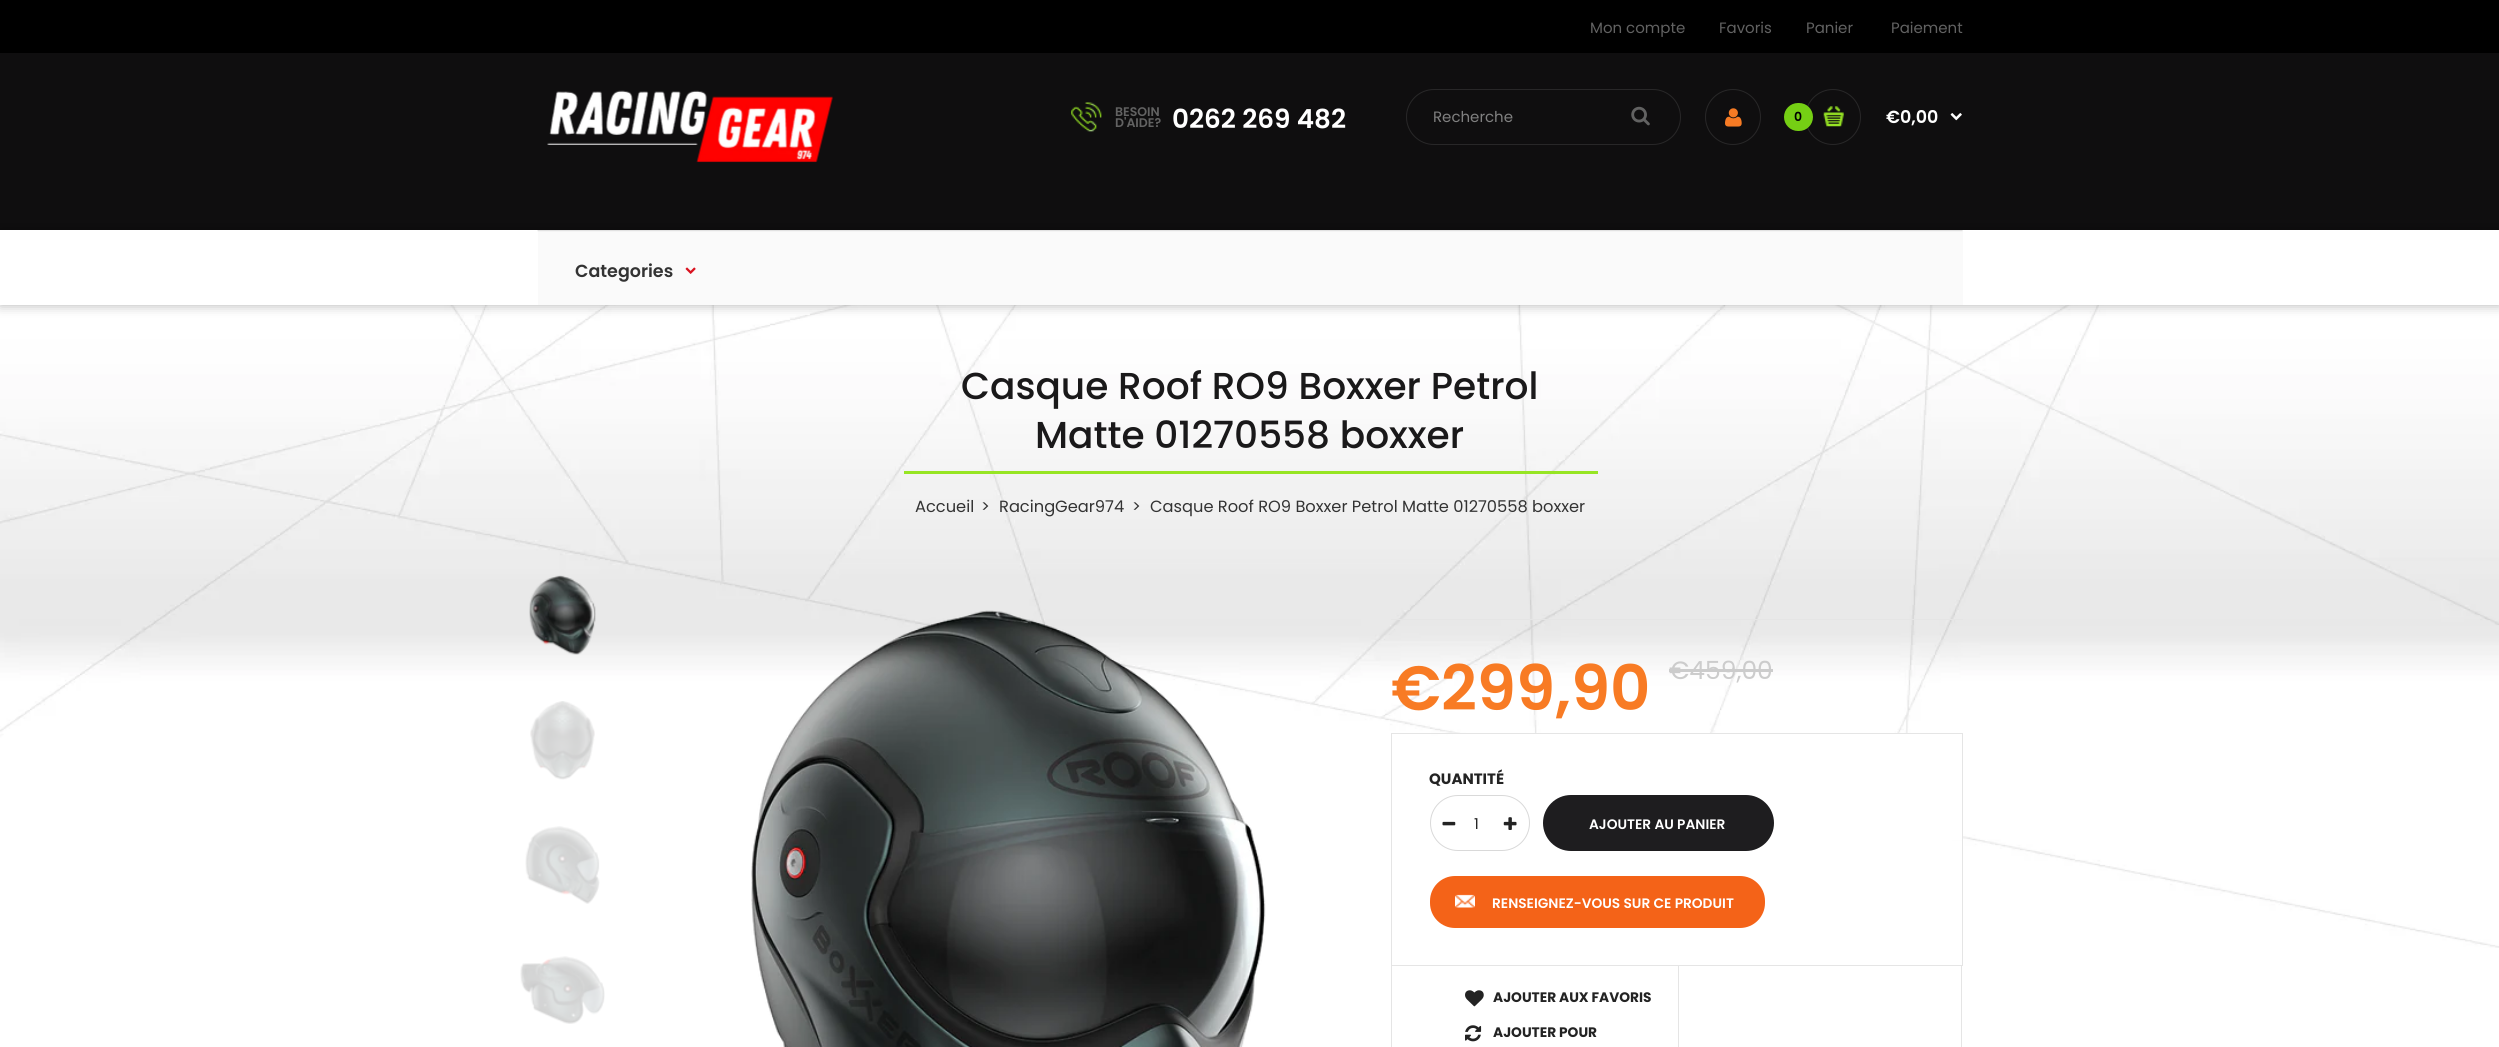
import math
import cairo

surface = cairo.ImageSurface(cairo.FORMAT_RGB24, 2499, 1047)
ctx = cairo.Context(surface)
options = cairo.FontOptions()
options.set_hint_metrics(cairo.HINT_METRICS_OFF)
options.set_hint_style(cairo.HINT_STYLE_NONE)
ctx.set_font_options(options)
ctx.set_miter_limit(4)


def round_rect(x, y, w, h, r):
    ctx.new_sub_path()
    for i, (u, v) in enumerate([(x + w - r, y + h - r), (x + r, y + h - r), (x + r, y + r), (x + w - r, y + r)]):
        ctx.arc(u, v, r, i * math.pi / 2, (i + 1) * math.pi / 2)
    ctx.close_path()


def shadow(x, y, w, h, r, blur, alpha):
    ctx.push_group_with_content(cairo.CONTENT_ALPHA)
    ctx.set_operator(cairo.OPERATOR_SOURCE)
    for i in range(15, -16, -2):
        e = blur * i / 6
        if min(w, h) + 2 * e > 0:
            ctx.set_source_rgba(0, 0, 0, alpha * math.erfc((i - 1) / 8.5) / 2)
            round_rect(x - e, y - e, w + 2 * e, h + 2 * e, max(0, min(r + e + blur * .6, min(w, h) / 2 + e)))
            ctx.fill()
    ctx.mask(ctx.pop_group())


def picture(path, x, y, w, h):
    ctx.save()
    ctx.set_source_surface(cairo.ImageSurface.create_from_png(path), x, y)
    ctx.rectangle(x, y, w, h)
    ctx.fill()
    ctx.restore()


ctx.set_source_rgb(1, 1, 1)
ctx.paint()
picture("img1.png", 0, 305, 2499, 643)
ctx.set_source_rgb(0.059, 0.055, 0.059)
ctx.rectangle(0, 53, 2499, 177)
ctx.fill()
ctx.set_source_rgb(0, 0, 0)
ctx.rectangle(0, 0, 2499, 53)
ctx.fill()
ctx.select_font_face("Poppins")
ctx.set_font_size(15)
ctx.set_source_rgb(0.384, 0.384, 0.384)
ctx.move_to(1590, 33)
ctx.show_text("Mon compte")
ctx.move_to(1719, 33)
ctx.show_text("Favoris")
ctx.move_to(1806, 33)
ctx.show_text("Panier")
ctx.move_to(1891, 33)
ctx.show_text("Paiement")
picture("img2.png", 547, 90, 286, 73)
picture("img3.png", 1071, 102, 31, 30)
ctx.select_font_face("Poppins SemiBold")
ctx.set_font_size(12.5)
ctx.move_to(1115, 116)
ctx.show_text("BESOIN")
ctx.move_to(1115, 127)
ctx.show_text("D'AIDE?")
ctx.set_font_size(26.25)
ctx.set_source_rgb(1, 1, 1)
ctx.move_to(1172, 128)
ctx.show_text("0262 269 482")
round_rect(1406.5, 89.5, 274, 55, 27.5)
ctx.set_source_rgb(0.157, 0.153, 0.157)
ctx.set_line_width(1)
ctx.stroke()
ctx.select_font_face("Poppins")
ctx.set_font_size(15)
ctx.set_source_rgb(0.502, 0.502, 0.502)
ctx.move_to(1433, 122)
ctx.show_text("Recherche")
picture("img4.png", 1631, 106, 19, 20)
ctx.arc(1733, 117, 27.5, 0, 2 * math.pi)
ctx.set_source_rgb(0.157, 0.153, 0.157)
ctx.stroke()
picture("img5.png", 1725, 108, 17, 19)
ctx.arc(1833, 117, 27.5, 0, 2 * math.pi)
ctx.stroke()
ctx.set_source_rgb(0.459, 0.812, 0.082)
round_rect(1784, 103, 29, 28, 14)
ctx.fill()
ctx.select_font_face("Poppins SemiBold")
ctx.set_font_size(12.5)
ctx.set_source_rgb(0, 0, 0)
ctx.move_to(1794, 121)
ctx.show_text("0")
picture("img6.png", 1823, 106, 21, 21)
ctx.set_font_size(17.5)
ctx.set_source_rgb(1, 1, 1)
ctx.move_to(1886, 123)
ctx.show_text("€0,00")
picture("img7.png", 1950, 113, 12, 8)
ctx.save()
ctx.set_fill_rule(cairo.FILL_RULE_EVEN_ODD)
ctx.new_path()
ctx.move_to(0, 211)
ctx.line_to(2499, 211)
ctx.line_to(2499, 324)
ctx.line_to(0, 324)
ctx.close_path()
ctx.move_to(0, 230)
ctx.line_to(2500, 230)
ctx.line_to(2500, 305)
ctx.line_to(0, 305)
ctx.close_path()
ctx.clip()
ctx.set_source_rgb(0, 0, 0)
shadow(0, 230, 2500, 75, 0, 6, 0.3)
ctx.restore()
ctx.set_source_rgb(0.98, 0.98, 0.98)
ctx.rectangle(538, 230, 1425, 75)
ctx.fill()
picture("img8.png", 537, 230, 1426, 2)
ctx.set_source_rgb(0.2, 0.2, 0.2)
ctx.move_to(575, 277)
ctx.show_text("Categories")
picture("img9.png", 685, 267, 11, 7)
ctx.set_source_rgb(0.592, 0.898, 0.141)
ctx.rectangle(904, 471, 694, 3)
ctx.fill()
ctx.select_font_face("Poppins Medium")
ctx.set_font_size(37.5)
ctx.set_source_rgb(0.102, 0.098, 0.102)
ctx.move_to(961, 399)
ctx.show_text("Casque Roof RO9 Boxxer Petrol")
ctx.move_to(1035, 448)
ctx.show_text("Matte 01270558 boxxer")
ctx.select_font_face("Poppins")
ctx.set_font_size(16.25)
ctx.set_source_rgb(0.2, 0.2, 0.2)
ctx.move_to(915, 512)
ctx.show_text("Accueil")
ctx.move_to(981, 512)
ctx.show_text(">")
ctx.move_to(999, 512)
ctx.show_text("RacingGear974")
ctx.move_to(1132, 512)
ctx.show_text(">")
ctx.move_to(1150, 512)
ctx.show_text("Casque Roof RO9 Boxxer Petrol Matte 01270558 boxxer")
picture("img10.png", 529, 575, 67, 80)
picture("img11.png", 530, 701, 65, 79)
picture("img12.png", 525, 826, 75, 78)
picture("img13.png", 520, 956, 85, 68)
picture("img14.png", 751, 610, 515, 437)
ctx.set_source_rgb(0.898, 0.898, 0.898)
ctx.rectangle(1391, 619, 572, 1)
ctx.fill()
ctx.select_font_face("Poppins SemiBold")
ctx.set_font_size(62.5)
ctx.set_source_rgb(0.969, 0.482, 0.141)
ctx.move_to(1391, 710)
ctx.show_text("€299,90")
ctx.select_font_face("Poppins")
ctx.set_font_size(25)
ctx.set_source_rgb(0.8, 0.8, 0.8)
ctx.move_to(1669, 679)
ctx.show_text("€459,00")
ctx.rectangle(1669, 669, 104, 3)
ctx.fill()
ctx.set_source_rgb(1, 1, 1)
ctx.rectangle(1453, 734, 509, 106)
ctx.fill()
ctx.rectangle(1391.5, 733.5, 571, 232)
ctx.set_source_rgb(0.898, 0.898, 0.898)
ctx.stroke()
ctx.select_font_face("Poppins", cairo.FONT_SLANT_NORMAL, cairo.FONT_WEIGHT_BOLD)
ctx.set_font_size(15)
ctx.set_source_rgb(0.137, 0.137, 0.137)
ctx.move_to(1429, 784)
ctx.show_text("QUANTITÉ")
round_rect(1430.5, 795.5, 99, 55, 27.5)
ctx.set_source_rgb(0.851, 0.851, 0.851)
ctx.stroke()
picture("img15.png", 1442, 821, 14, 5)
ctx.select_font_face("Poppins")
ctx.set_source_rgb(0.137, 0.137, 0.137)
ctx.move_to(1474, 829)
ctx.show_text("1")
picture("img16.png", 1503, 817, 14, 13)
ctx.set_source_rgb(0.118, 0.114, 0.122)
round_rect(1543, 795, 231, 56, 28)
ctx.fill()
ctx.select_font_face("Poppins SemiBold")
ctx.set_font_size(13.75)
ctx.set_source_rgb(1, 1, 1)
ctx.move_to(1589, 829)
ctx.show_text("AJOUTER AU PANIER")
ctx.set_source_rgb(0.957, 0.388, 0.094)
round_rect(1430, 876, 335, 52, 25)
ctx.fill()
picture("img17.png", 1455, 894, 20, 14)
ctx.set_source_rgb(1, 1, 1)
ctx.move_to(1492, 908)
ctx.show_text("RENSEIGNEZ-VOUS SUR CE PRODUIT")
ctx.set_source_rgb(0.898, 0.898, 0.898)
ctx.rectangle(1961, 966, 1, 81)
ctx.fill()
ctx.rectangle(1391, 966, 1, 81)
ctx.fill()
ctx.rectangle(1678, 966, 1, 81)
ctx.fill()
picture("img18.png", 1465, 990, 19, 17)
ctx.select_font_face("Poppins", cairo.FONT_SLANT_NORMAL, cairo.FONT_WEIGHT_BOLD)
ctx.set_source_rgb(0.137, 0.137, 0.137)
ctx.move_to(1493, 1002)
ctx.show_text("AJOUTER AUX FAVORIS")
picture("img19.png", 1465, 1025, 17, 17)
ctx.move_to(1493, 1037)
ctx.show_text("AJOUTER POUR")
surface.write_to_png("page.png")
